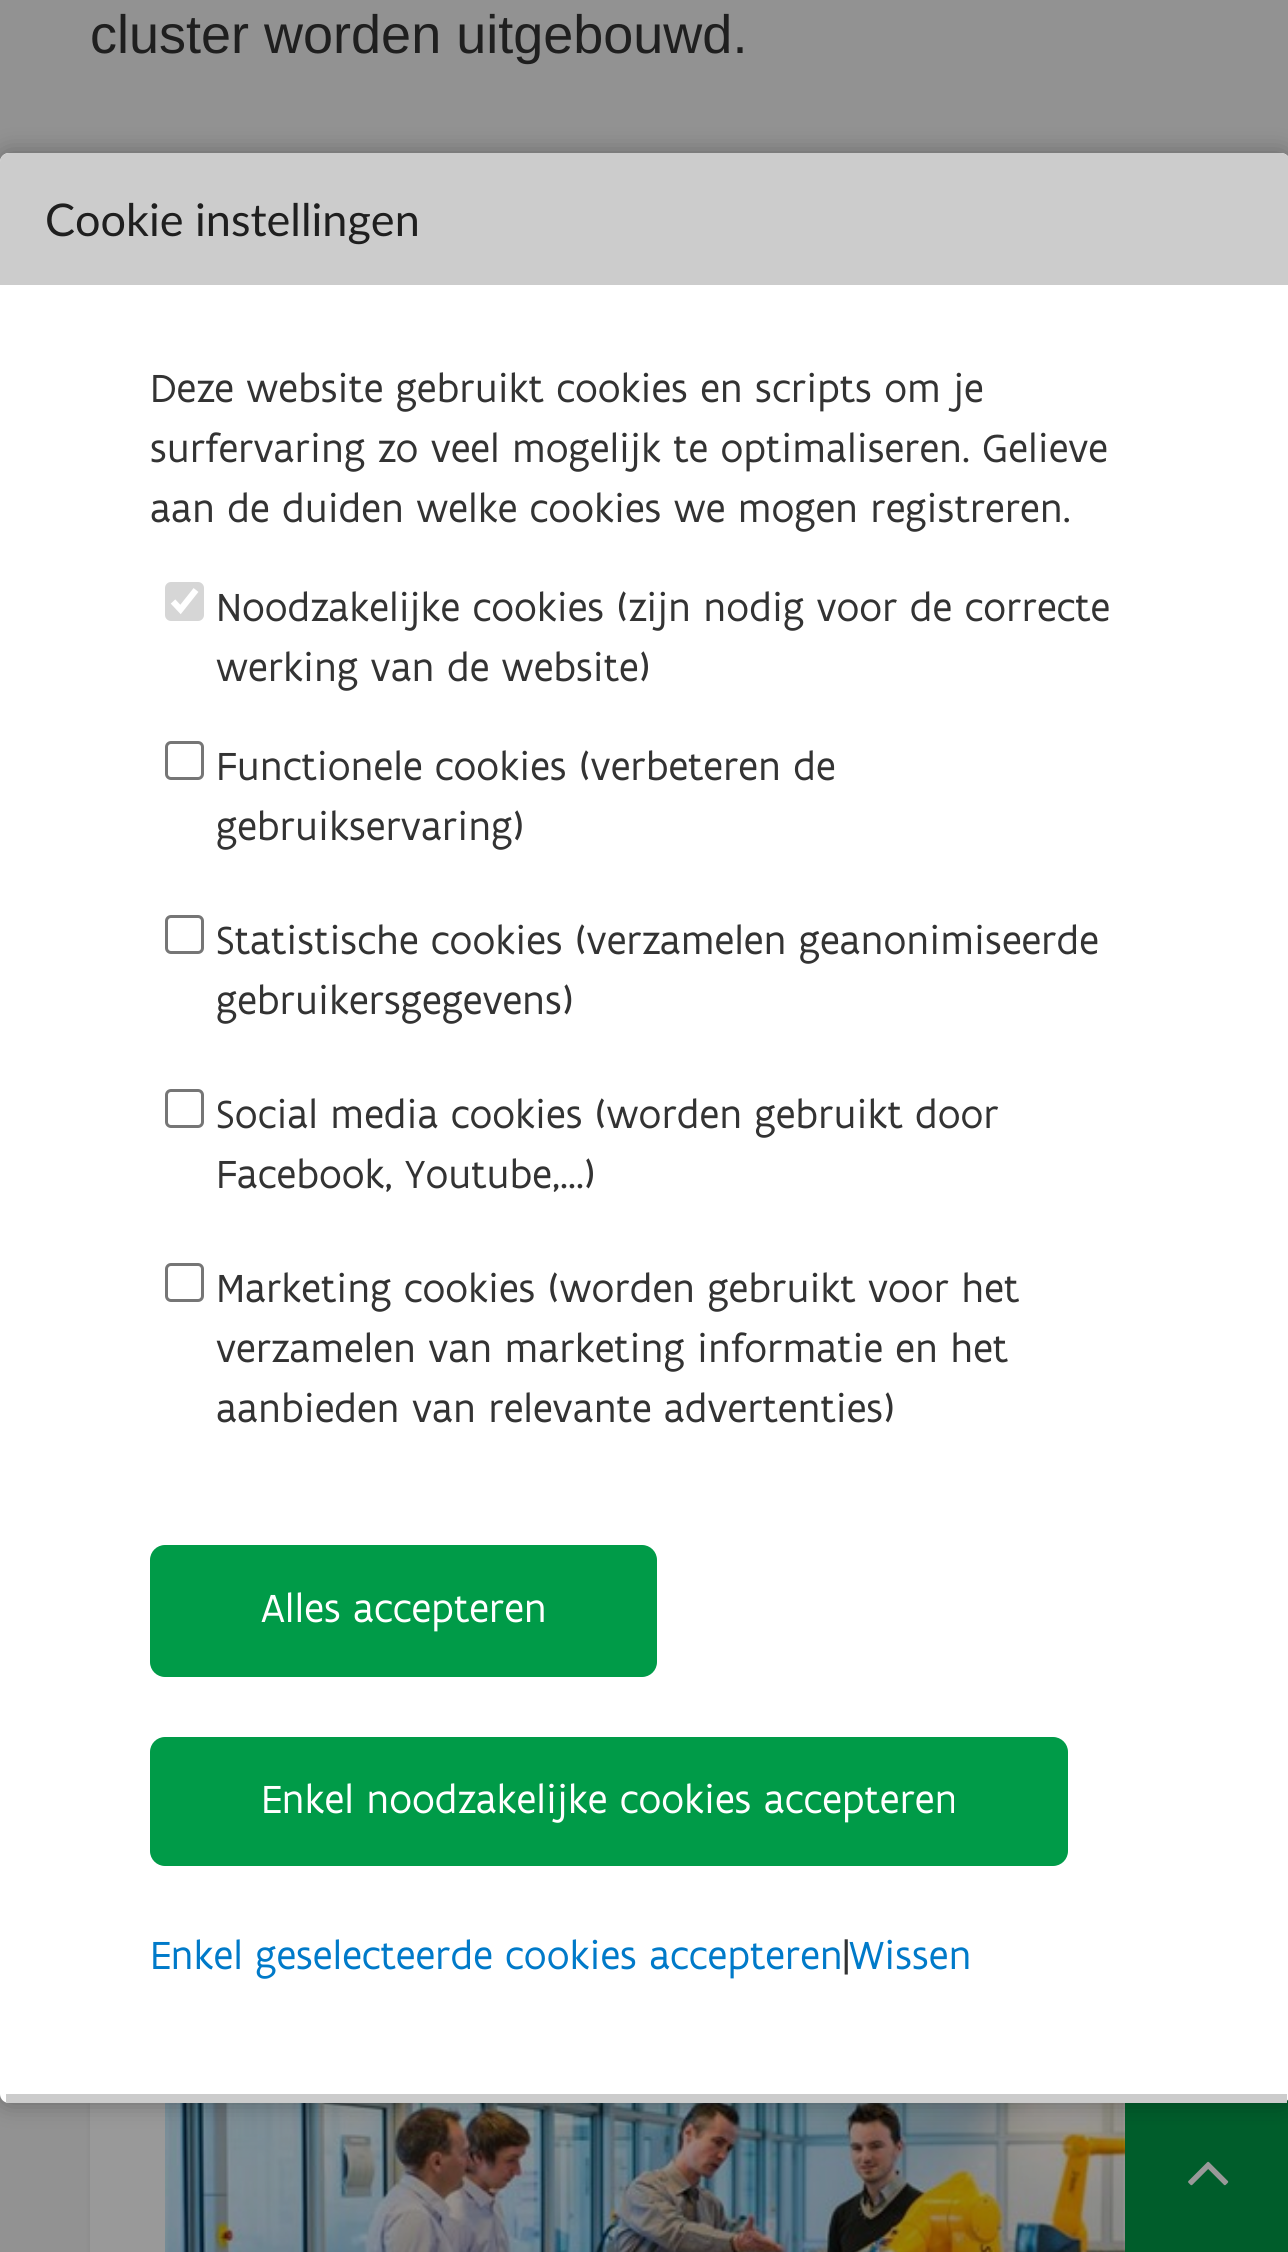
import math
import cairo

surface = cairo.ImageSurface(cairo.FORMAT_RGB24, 1288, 2252)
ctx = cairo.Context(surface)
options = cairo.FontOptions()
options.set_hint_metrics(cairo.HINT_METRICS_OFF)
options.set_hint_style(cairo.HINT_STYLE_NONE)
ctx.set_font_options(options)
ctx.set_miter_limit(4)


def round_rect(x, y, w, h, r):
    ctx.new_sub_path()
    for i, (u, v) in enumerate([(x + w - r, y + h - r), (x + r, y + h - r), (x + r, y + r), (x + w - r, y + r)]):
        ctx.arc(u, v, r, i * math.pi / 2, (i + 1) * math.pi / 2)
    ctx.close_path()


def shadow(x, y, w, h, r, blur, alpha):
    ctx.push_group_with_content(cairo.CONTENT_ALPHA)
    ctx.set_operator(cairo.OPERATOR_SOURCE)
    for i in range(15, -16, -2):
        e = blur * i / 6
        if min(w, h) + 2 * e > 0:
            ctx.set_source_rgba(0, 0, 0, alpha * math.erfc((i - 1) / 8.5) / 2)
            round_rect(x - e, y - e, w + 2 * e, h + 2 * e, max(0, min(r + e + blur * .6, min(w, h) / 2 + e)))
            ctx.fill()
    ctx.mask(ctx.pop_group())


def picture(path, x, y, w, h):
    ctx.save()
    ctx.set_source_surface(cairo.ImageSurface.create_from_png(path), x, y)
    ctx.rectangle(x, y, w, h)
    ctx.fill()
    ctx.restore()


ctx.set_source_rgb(0.573, 0.573, 0.573)
ctx.paint()
ctx.select_font_face("Liberation Sans")
ctx.set_font_size(54)
ctx.set_source_rgb(0.122, 0.122, 0.122)
ctx.move_to(90, 53)
ctx.show_text("cluster worden uitgebouwd.")
ctx.set_source_rgb(0, 0, 0)
shadow(90, 1878, 1110, 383, 0, 3, 0.07)
ctx.set_source_rgb(0.6, 0.6, 0.6)
ctx.rectangle(90, 2103, 75, 149)
ctx.fill()
picture("img1.png", 165, 2103, 960, 149)
ctx.set_source_rgb(0, 0.365, 0.169)
ctx.rectangle(1125, 2099, 163, 153)
ctx.fill()
picture("img2.png", 1188, 2161, 41, 25)
ctx.set_source_rgb(0, 0, 0)
shadow(0, 153, 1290, 1950, 9, 12, 0.3)
ctx.set_source_rgb(1, 1, 1)
round_rect(0, 153, 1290, 1950, 9)
ctx.fill()
ctx.set_source_rgb(0.8, 0.8, 0.8)
ctx.rectangle(6, 2094, 1281, 9)
ctx.fill()
ctx.new_path()
ctx.move_to(9, 153)
ctx.curve_to(4, 153, 0, 157, 0, 162)
ctx.line_to(0, 285)
ctx.line_to(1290, 285)
ctx.line_to(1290, 162)
ctx.curve_to(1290, 157, 1286, 153, 1281, 153)
ctx.close_path()
ctx.fill()
ctx.select_font_face("Lato")
ctx.set_font_size(45)
ctx.set_source_rgb(0.122, 0.122, 0.122)
ctx.move_to(45, 236)
ctx.show_text("Cookie instellingen")
ctx.select_font_face("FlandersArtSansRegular")
ctx.set_font_size(42)
ctx.set_source_rgb(0.2, 0.2, 0.2)
ctx.move_to(150, 402)
ctx.show_text("Deze website gebruikt cookies en scripts om je")
ctx.move_to(150, 462)
ctx.show_text("surfervaring zo veel mogelijk te optimaliseren. Gelieve")
ctx.move_to(150, 522)
ctx.show_text("aan de duiden welke cookies we mogen registreren.")
ctx.set_source_rgb(0.839, 0.839, 0.839)
round_rect(165, 582, 39, 39, 6)
ctx.fill()
ctx.new_path()
ctx.move_to(173, 601.5)
ctx.line_to(180.5, 609.5)
ctx.line_to(196, 590)
ctx.set_source_rgb(1, 1, 1)
ctx.set_line_width(6.2)
ctx.stroke()
ctx.set_source_rgb(0.2, 0.2, 0.2)
ctx.move_to(216, 621)
ctx.show_text("Noodzakelijke cookies (zijn nodig voor de correcte")
ctx.move_to(216, 681)
ctx.show_text("werking van de website)")
round_rect(166.5, 742.5, 36, 36, 4.5)
ctx.set_source_rgb(0.463, 0.463, 0.463)
ctx.set_line_width(3)
ctx.stroke()
ctx.set_source_rgb(0.2, 0.2, 0.2)
ctx.move_to(216, 780)
ctx.show_text("Functionele cookies (verbeteren de")
ctx.move_to(216, 840)
ctx.show_text("gebruikservaring)")
round_rect(166.5, 916.5, 36, 36, 4.5)
ctx.set_source_rgb(0.463, 0.463, 0.463)
ctx.stroke()
ctx.set_source_rgb(0.2, 0.2, 0.2)
ctx.move_to(216, 954)
ctx.show_text("Statistische cookies (verzamelen geanonimiseerde")
ctx.move_to(216, 1014)
ctx.show_text("gebruikersgegevens)")
round_rect(166.5, 1090.5, 36, 36, 4.5)
ctx.set_source_rgb(0.463, 0.463, 0.463)
ctx.stroke()
ctx.set_source_rgb(0.2, 0.2, 0.2)
ctx.move_to(216, 1128)
ctx.show_text("Social media cookies (worden gebruikt door")
ctx.move_to(216, 1188)
ctx.show_text("Facebook, Youtube,...)")
round_rect(166.5, 1264.5, 36, 36, 4.5)
ctx.set_source_rgb(0.463, 0.463, 0.463)
ctx.stroke()
ctx.set_source_rgb(0.2, 0.2, 0.2)
ctx.move_to(216, 1302)
ctx.show_text("Marketing cookies (worden gebruikt voor het")
ctx.move_to(216, 1362)
ctx.show_text("verzamelen van marketing informatie en het")
ctx.move_to(216, 1422)
ctx.show_text("aanbieden van relevante advertenties)")
ctx.set_source_rgb(0, 0.608, 0.282)
round_rect(150, 1545, 507, 132, 15)
ctx.fill()
ctx.set_source_rgb(1, 1, 1)
ctx.move_to(261, 1622)
ctx.show_text("Alles accepteren")
ctx.set_source_rgb(0, 0.608, 0.282)
round_rect(150, 1737, 918, 129, 15)
ctx.fill()
ctx.set_source_rgb(1, 1, 1)
ctx.move_to(261, 1813)
ctx.show_text("Enkel noodzakelijke cookies accepteren")
ctx.set_source_rgb(0, 0.478, 0.788)
ctx.move_to(150, 1969)
ctx.show_text("Enkel geselecteerde cookies accepteren")
ctx.set_source_rgb(0.2, 0.2, 0.2)
ctx.move_to(843, 1969)
ctx.show_text("|")
ctx.set_source_rgb(0, 0.478, 0.788)
ctx.move_to(849, 1969)
ctx.show_text("Wissen")
surface.write_to_png("page.png")
